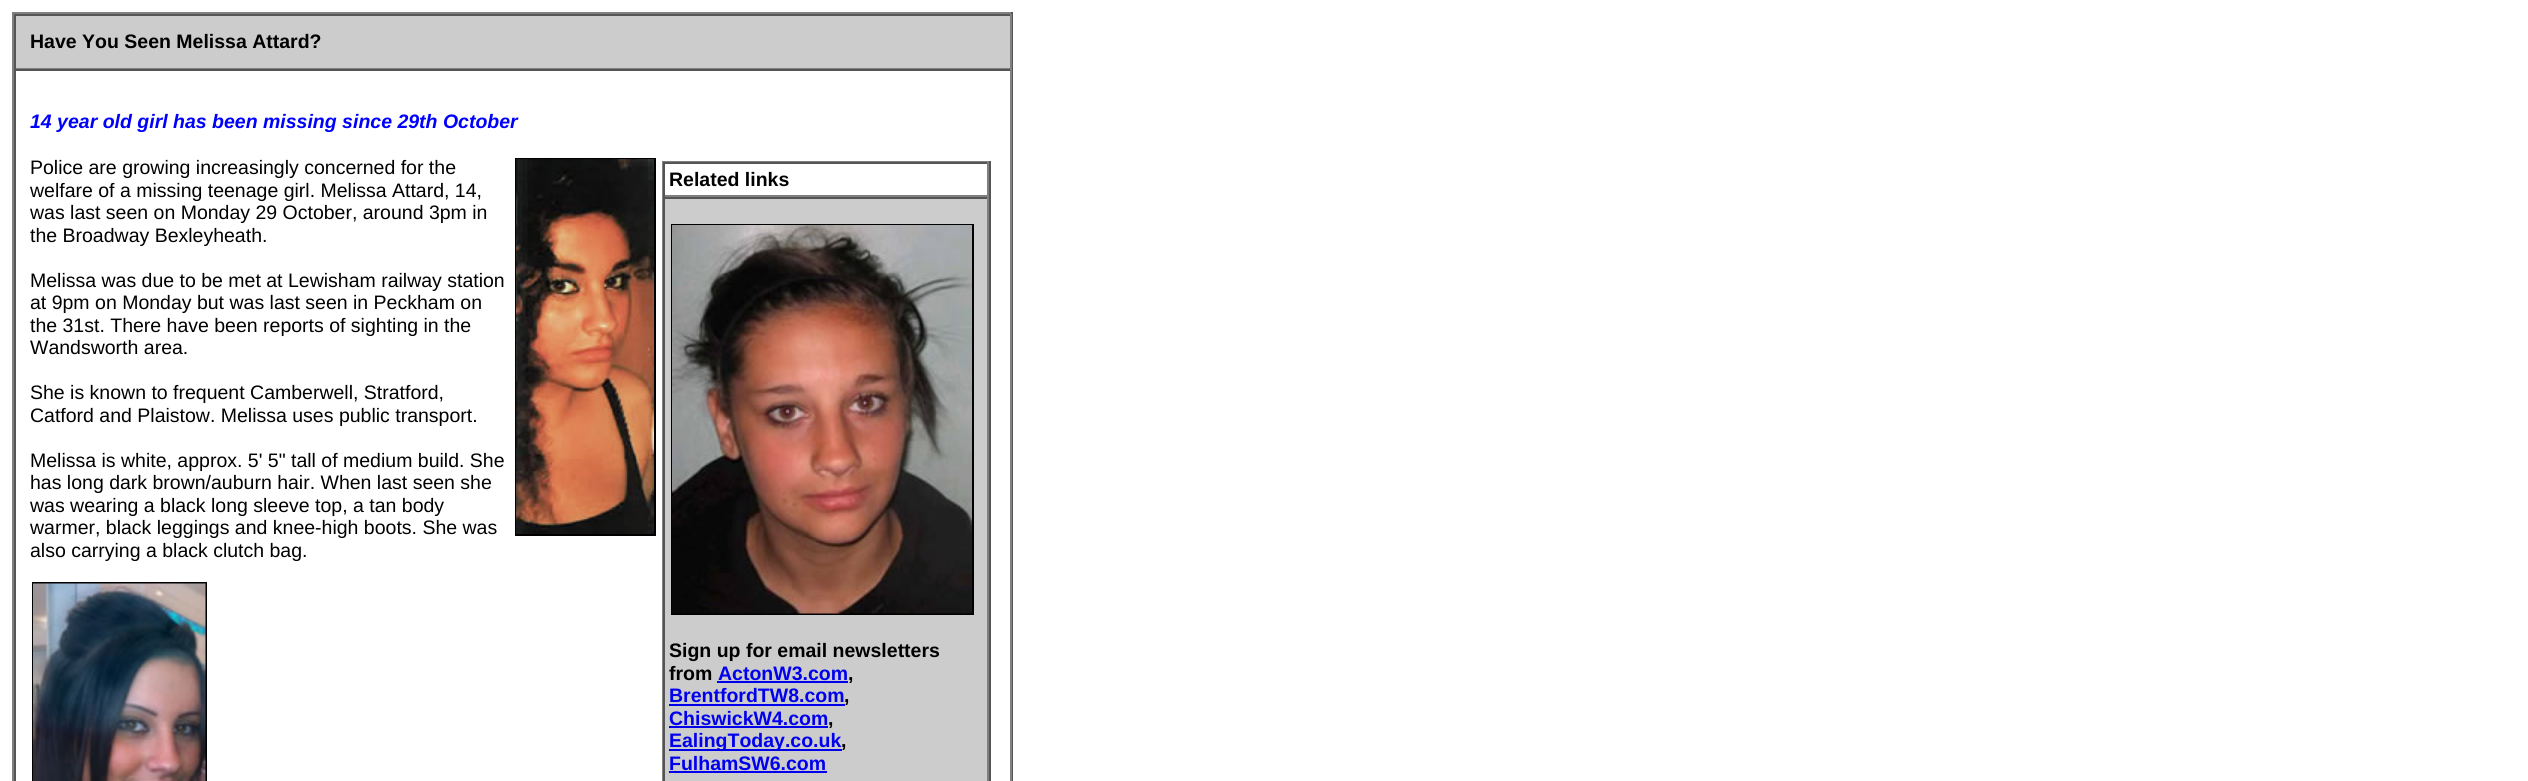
import math
import cairo

surface = cairo.ImageSurface(cairo.FORMAT_RGB24, 2528, 781)
ctx = cairo.Context(surface)
options = cairo.FontOptions()
options.set_hint_metrics(cairo.HINT_METRICS_OFF)
options.set_hint_style(cairo.HINT_STYLE_NONE)
ctx.set_font_options(options)
ctx.set_miter_limit(4)


def picture(path, x, y, w, h):
    ctx.save()
    ctx.set_source_surface(cairo.ImageSurface.create_from_png(path), x, y)
    ctx.rectangle(x, y, w, h)
    ctx.fill()
    ctx.restore()


ctx.set_source_rgb(1, 1, 1)
ctx.paint()
ctx.set_source_rgb(0.502, 0.502, 0.502)
ctx.rectangle(12, 12, 1001, 2)
ctx.fill()
ctx.set_source_rgb(0.333, 0.333, 0.333)
ctx.rectangle(1011, 12, 2, 769)
ctx.fill()
ctx.set_source_rgb(0.502, 0.502, 0.502)
ctx.rectangle(12, 12, 2, 769)
ctx.fill()
ctx.set_source_rgb(0.8, 0.8, 0.8)
ctx.rectangle(16, 16, 994, 52)
ctx.fill()
ctx.set_source_rgb(0.333, 0.333, 0.333)
ctx.rectangle(14, 14, 997, 2)
ctx.fill()
ctx.set_source_rgb(0.502, 0.502, 0.502)
ctx.rectangle(1010, 14, 2, 55)
ctx.fill()
ctx.rectangle(14, 68, 997, 1)
ctx.fill()
ctx.set_source_rgb(0.333, 0.333, 0.333)
ctx.rectangle(14, 14, 2, 55)
ctx.fill()
ctx.select_font_face("Liberation Sans", cairo.FONT_SLANT_NORMAL, cairo.FONT_WEIGHT_BOLD)
ctx.set_font_size(19.5)
ctx.set_source_rgb(0, 0, 0)
ctx.move_to(30, 48)
ctx.show_text("Have You Seen Melissa Attard?")
ctx.set_source_rgb(0.333, 0.333, 0.333)
ctx.rectangle(14, 69, 997, 2)
ctx.fill()
ctx.set_source_rgb(0.502, 0.502, 0.502)
ctx.rectangle(1010, 69, 2, 712)
ctx.fill()
ctx.set_source_rgb(0.333, 0.333, 0.333)
ctx.rectangle(14, 69, 2, 712)
ctx.fill()
ctx.select_font_face("Liberation Sans", cairo.FONT_SLANT_ITALIC, cairo.FONT_WEIGHT_BOLD)
ctx.set_source_rgb(0, 0, 1)
ctx.move_to(30, 128)
ctx.show_text("14 year old girl has been missing since 29th October")
ctx.select_font_face("Liberation Sans")
ctx.set_source_rgb(0, 0, 0)
ctx.move_to(30, 174)
ctx.show_text("Police are growing increasingly concerned for the")
ctx.rectangle(516, 159, 139, 376)
ctx.stroke()
picture("img1.png", 516, 159, 138, 375)
ctx.move_to(30, 197)
ctx.show_text("welfare of a missing teenage girl. Melissa Attard, 14,")
ctx.move_to(30, 219)
ctx.show_text("was last seen on Monday 29 October, around 3pm in")
ctx.move_to(30, 242)
ctx.show_text("the Broadway Bexleyheath.")
ctx.move_to(30, 287)
ctx.show_text("Melissa was due to be met at Lewisham railway station")
ctx.move_to(30, 309)
ctx.show_text("at 9pm on Monday but was last seen in Peckham on")
ctx.move_to(30, 332)
ctx.show_text("the 31st. There have been reports of sighting in the")
ctx.move_to(30, 354)
ctx.show_text("Wandsworth area.")
ctx.move_to(30, 399)
ctx.show_text("She is known to frequent Camberwell, Stratford,")
ctx.move_to(30, 422)
ctx.show_text("Catford and Plaistow. Melissa uses public transport.")
ctx.move_to(30, 467)
ctx.show_text("Melissa is white, approx. 5' 5\" tall of medium build. She")
ctx.move_to(30, 489)
ctx.show_text("has long dark brown/auburn hair. When last seen she")
ctx.move_to(30, 512)
ctx.show_text("was wearing a black long sleeve top, a tan body")
ctx.move_to(30, 534)
ctx.show_text("warmer, black leggings and knee-high boots. She was")
ctx.move_to(30, 557)
ctx.show_text("also carrying a black clutch bag.")
ctx.set_source_rgb(0.502, 0.502, 0.502)
ctx.rectangle(662, 161, 328, 1)
ctx.fill()
ctx.set_source_rgb(0.333, 0.333, 0.333)
ctx.rectangle(989, 161, 2, 620)
ctx.fill()
ctx.set_source_rgb(0.502, 0.502, 0.502)
ctx.rectangle(662, 161, 2, 620)
ctx.fill()
ctx.set_source_rgb(0.333, 0.333, 0.333)
ctx.rectangle(663, 162, 326, 2)
ctx.fill()
ctx.set_source_rgb(0.502, 0.502, 0.502)
ctx.rectangle(987, 162, 2, 35)
ctx.fill()
ctx.rectangle(663, 195, 326, 2)
ctx.fill()
ctx.set_source_rgb(0.333, 0.333, 0.333)
ctx.rectangle(663, 162, 2, 35)
ctx.fill()
ctx.select_font_face("Liberation Sans", cairo.FONT_SLANT_NORMAL, cairo.FONT_WEIGHT_BOLD)
ctx.set_source_rgb(0, 0, 0)
ctx.move_to(669, 186)
ctx.show_text("Related links")
ctx.set_source_rgb(0.8, 0.8, 0.8)
ctx.rectangle(665, 199, 322, 582)
ctx.fill()
ctx.set_source_rgb(0.333, 0.333, 0.333)
ctx.rectangle(663, 197, 326, 2)
ctx.fill()
ctx.set_source_rgb(0.502, 0.502, 0.502)
ctx.rectangle(987, 197, 2, 584)
ctx.fill()
ctx.set_source_rgb(0.333, 0.333, 0.333)
ctx.rectangle(663, 197, 2, 584)
ctx.fill()
ctx.rectangle(672, 225, 301, 389)
ctx.set_source_rgb(0, 0, 0)
ctx.stroke()
picture("img2.png", 672, 225, 300, 389)
ctx.move_to(669, 657)
ctx.show_text("Sign up for email newsletters")
ctx.move_to(669, 680)
ctx.show_text("from")
ctx.set_source_rgb(0, 0, 0.933)
ctx.move_to(718, 680)
ctx.show_text("ActonW3.com")
ctx.set_source_rgb(0, 0, 0)
ctx.move_to(848, 680)
ctx.show_text(",")
ctx.set_source_rgb(0, 0, 0.933)
ctx.rectangle(717, 681, 131, 2)
ctx.fill()
ctx.move_to(669, 702)
ctx.show_text("BrentfordTW8.com")
ctx.set_source_rgb(0, 0, 0)
ctx.move_to(844, 702)
ctx.show_text(",")
ctx.set_source_rgb(0, 0, 0.933)
ctx.rectangle(669, 704, 176, 2)
ctx.fill()
ctx.move_to(669, 725)
ctx.show_text("ChiswickW4.com")
ctx.set_source_rgb(0, 0, 0)
ctx.move_to(828, 725)
ctx.show_text(",")
ctx.set_source_rgb(0, 0, 0.933)
ctx.rectangle(669, 726, 159, 2)
ctx.fill()
ctx.rectangle(669, 749, 173, 2)
ctx.fill()
ctx.move_to(669, 747)
ctx.show_text("EalingToday.co.uk")
ctx.set_source_rgb(0, 0, 0)
ctx.move_to(841, 747)
ctx.show_text(",")
ctx.set_source_rgb(0, 0, 0.933)
ctx.move_to(669, 770)
ctx.show_text("FulhamSW6.com")
ctx.rectangle(669, 771, 158, 2)
ctx.fill()
ctx.rectangle(33, 583, 173, 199)
ctx.set_source_rgb(0, 0, 0)
ctx.stroke()
picture("img3.png", 33, 583, 173, 198)
surface.write_to_png("page.png")
